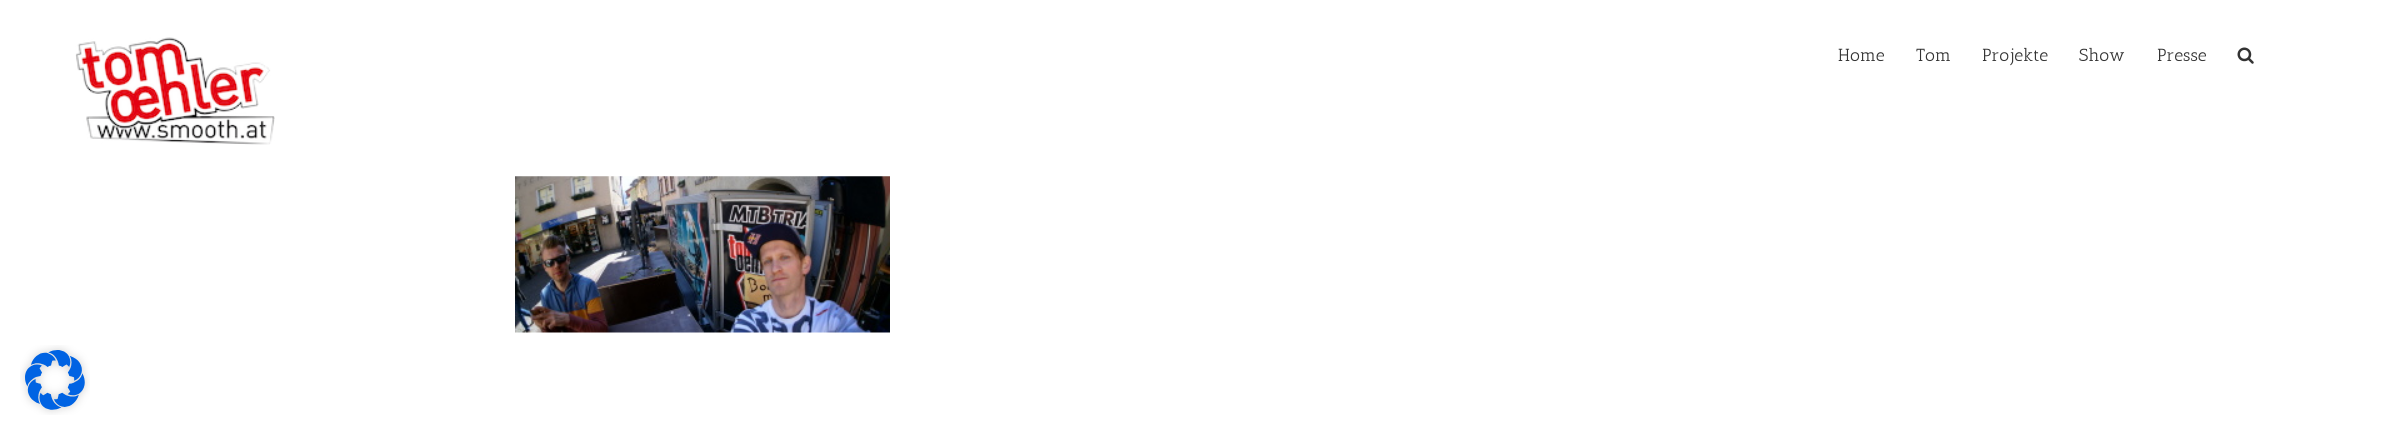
import math
import cairo

surface = cairo.ImageSurface(cairo.FORMAT_RGB24, 2403, 434)
ctx = cairo.Context(surface)
options = cairo.FontOptions()
options.set_hint_metrics(cairo.HINT_METRICS_OFF)
options.set_hint_style(cairo.HINT_STYLE_NONE)
ctx.set_font_options(options)
ctx.set_miter_limit(4)


def picture(path, x, y, w, h):
    ctx.save()
    ctx.set_source_surface(cairo.ImageSurface.create_from_png(path), x, y)
    ctx.rectangle(x, y, w, h)
    ctx.fill()
    ctx.restore()


ctx.set_source_rgb(1, 1, 1)
ctx.paint()
picture("img1.png", 75, 37, 200, 108)
ctx.select_font_face("Antic Slab")
ctx.set_font_size(17.5)
ctx.set_source_rgb(0.2, 0.2, 0.2)
ctx.move_to(1838, 61)
ctx.show_text("Home")
ctx.move_to(1916, 61)
ctx.show_text("Tom")
ctx.move_to(1982, 61)
ctx.show_text("Projekte")
ctx.move_to(2079, 61)
ctx.show_text("Show")
ctx.move_to(2157, 61)
ctx.show_text("Presse")
picture("img2.png", 2237, 47, 17, 17)
picture("img3.png", 515, 176, 375, 157)
picture("img4.png", 20, 345, 70, 70)
surface.write_to_png("page.png")
